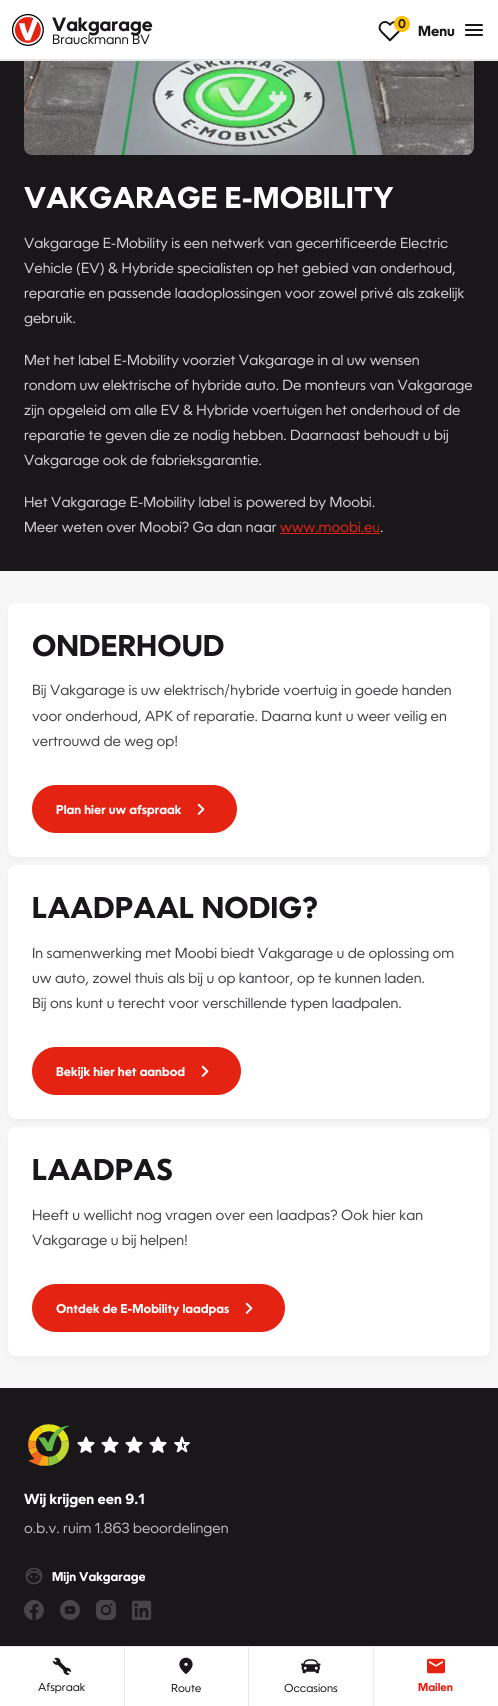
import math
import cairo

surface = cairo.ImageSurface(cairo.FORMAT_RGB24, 498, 1706)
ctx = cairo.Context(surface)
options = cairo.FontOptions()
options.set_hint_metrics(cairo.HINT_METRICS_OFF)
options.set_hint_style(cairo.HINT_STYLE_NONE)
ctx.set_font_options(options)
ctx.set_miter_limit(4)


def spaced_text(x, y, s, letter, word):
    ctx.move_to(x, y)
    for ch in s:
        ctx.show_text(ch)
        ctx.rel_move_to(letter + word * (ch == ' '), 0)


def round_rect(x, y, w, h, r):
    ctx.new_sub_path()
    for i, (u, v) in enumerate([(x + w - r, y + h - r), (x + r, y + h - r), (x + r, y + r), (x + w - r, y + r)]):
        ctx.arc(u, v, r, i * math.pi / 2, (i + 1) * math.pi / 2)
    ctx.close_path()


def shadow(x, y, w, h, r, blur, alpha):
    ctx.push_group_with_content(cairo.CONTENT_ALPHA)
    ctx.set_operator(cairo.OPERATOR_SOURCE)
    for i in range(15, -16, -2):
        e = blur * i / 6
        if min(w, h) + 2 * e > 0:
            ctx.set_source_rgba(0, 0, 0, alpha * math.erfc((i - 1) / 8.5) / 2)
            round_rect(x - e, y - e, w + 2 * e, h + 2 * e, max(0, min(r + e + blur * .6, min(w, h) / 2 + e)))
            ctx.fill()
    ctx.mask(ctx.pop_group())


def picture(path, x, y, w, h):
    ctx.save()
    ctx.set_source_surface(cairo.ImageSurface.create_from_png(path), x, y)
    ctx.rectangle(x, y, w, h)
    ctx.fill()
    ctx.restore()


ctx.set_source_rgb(0.961, 0.961, 0.961)
ctx.paint()
ctx.set_source_rgb(1, 1, 1)
ctx.rectangle(0, 0, 498, 59)
ctx.fill()
ctx.set_source_rgb(0.91, 0.91, 0.91)
ctx.rectangle(0, 59, 498, 2)
ctx.fill()
picture("img1.png", 12, 14, 32, 32)
ctx.select_font_face("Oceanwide", cairo.FONT_SLANT_NORMAL, cairo.FONT_WEIGHT_BOLD)
ctx.set_font_size(18.5)
ctx.set_source_rgb(0.102, 0.09, 0.106)
ctx.move_to(52, 31)
ctx.show_text("Vakgarage")
ctx.select_font_face("Oceanwide")
ctx.set_font_size(13)
ctx.move_to(52, 44)
ctx.show_text("Brauckmann BV")
picture("img2.png", 378, 21, 23, 21)
ctx.set_source_rgb(1, 0.753, 0)
ctx.arc(402, 24, 8, 0, 2 * math.pi)
ctx.fill()
ctx.select_font_face("Oceanwide SemiBold")
ctx.set_font_size(12)
ctx.set_source_rgb(0.102, 0.09, 0.106)
ctx.move_to(398, 28)
ctx.show_text("0")
ctx.select_font_face("Oceanwide", cairo.FONT_SLANT_NORMAL, cairo.FONT_WEIGHT_BOLD)
ctx.set_font_size(14)
ctx.move_to(418, 36)
ctx.show_text("Menu")
picture("img3.png", 465, 24, 18, 12)
ctx.rectangle(0, 61, 498, 510)
ctx.fill()
picture("img4.png", 24, 61, 450, 94)
ctx.set_font_size(28.75)
ctx.set_source_rgb(1, 1, 1)
spaced_text(24, 208, "VAKGARAGE E-MOBILITY", 0.25, 0)
ctx.select_font_face("Oceanwide")
ctx.set_font_size(14)
ctx.set_source_rgb(0.82, 0.82, 0.82)
ctx.move_to(24, 248)
ctx.show_text("Vakgarage E-Mobility is een netwerk van gecertificeerde Electric")
ctx.move_to(24, 273)
ctx.show_text("Vehicle (EV) & Hybride specialisten op het gebied van onderhoud,")
ctx.move_to(24, 298)
ctx.show_text("reparatie en passende laadoplossingen voor zowel privé als zakelijk")
ctx.move_to(24, 323)
ctx.show_text("gebruik.")
ctx.move_to(24, 365)
ctx.show_text("Met het label E-Mobility voorziet Vakgarage in al uw wensen")
ctx.move_to(24, 390)
ctx.show_text("rondom uw elektrische of hybride auto. De monteurs van Vakgarage")
ctx.move_to(24, 415)
ctx.show_text("zijn opgeleid om alle EV & Hybride voertuigen het onderhoud of de")
ctx.move_to(24, 440)
ctx.show_text("reparatie te geven die ze nodig hebben. Daarnaast behoudt u bij")
ctx.move_to(24, 465)
ctx.show_text("Vakgarage ook de fabrieksgarantie.")
ctx.move_to(24, 507)
ctx.show_text("Het Vakgarage E-Mobility label is powered by Moobi.")
ctx.move_to(24, 532)
ctx.show_text("Meer weten over Moobi? Ga dan naar")
ctx.set_source_rgb(0.894, 0.137, 0.075)
ctx.move_to(280, 532)
ctx.show_text("www.moobi.eu")
ctx.rectangle(280, 533, 100, 1)
ctx.fill()
ctx.set_source_rgb(0.82, 0.82, 0.82)
ctx.move_to(380, 532)
ctx.show_text(".")
ctx.set_source_rgb(0, 0, 0)
shadow(13, 611, 472, 244, 3, 5, 0.1)
ctx.set_source_rgb(1, 1, 1)
round_rect(8, 603, 482, 254, 8)
ctx.fill()
ctx.select_font_face("Oceanwide", cairo.FONT_SLANT_NORMAL, cairo.FONT_WEIGHT_BOLD)
ctx.set_font_size(28.75)
ctx.set_source_rgb(0.102, 0.09, 0.106)
spaced_text(32, 656, "ONDERHOUD", 0.25, 0)
ctx.select_font_face("Oceanwide")
ctx.set_font_size(14)
ctx.set_source_rgb(0.282, 0.271, 0.286)
ctx.move_to(32, 695)
ctx.show_text("Bij Vakgarage is uw elektrisch/hybride voertuig in goede handen")
ctx.move_to(32, 721)
ctx.show_text("voor onderhoud, APK of reparatie. Daarna kunt u weer veilig en")
ctx.move_to(32, 746)
ctx.show_text("vertrouwd de weg op!")
ctx.set_source_rgb(0.894, 0.137, 0.075)
round_rect(32, 785, 205, 48, 24)
ctx.fill()
ctx.select_font_face("Oceanwide", cairo.FONT_SLANT_NORMAL, cairo.FONT_WEIGHT_BOLD)
ctx.set_font_size(12.25)
ctx.set_source_rgb(1, 1, 1)
ctx.move_to(56, 814)
ctx.show_text("Plan hier uw afspraak")
picture("img5.png", 197, 803, 8, 12)
ctx.set_source_rgb(0, 0, 0)
shadow(13, 873, 472, 244, 3, 5, 0.1)
ctx.set_source_rgb(1, 1, 1)
round_rect(8, 865, 482, 254, 8)
ctx.fill()
ctx.set_font_size(28.75)
ctx.set_source_rgb(0.102, 0.09, 0.106)
spaced_text(32, 918, "LAADPAAL NODIG?", 0.25, 0)
ctx.select_font_face("Oceanwide")
ctx.set_font_size(14)
ctx.set_source_rgb(0.282, 0.271, 0.286)
ctx.move_to(32, 958)
ctx.show_text("In samenwerking met Moobi biedt Vakgarage u de oplossing om")
ctx.move_to(32, 983)
ctx.show_text("uw auto, zowel thuis als bij u op kantoor, op te kunnen laden.")
ctx.move_to(32, 1008)
ctx.show_text("Bij ons kunt u terecht voor verschillende typen laadpalen.")
ctx.set_source_rgb(0.894, 0.137, 0.075)
round_rect(32, 1047, 209, 48, 24)
ctx.fill()
ctx.select_font_face("Oceanwide", cairo.FONT_SLANT_NORMAL, cairo.FONT_WEIGHT_BOLD)
ctx.set_font_size(12.25)
ctx.set_source_rgb(1, 1, 1)
ctx.move_to(56, 1076)
ctx.show_text("Bekijk hier het aanbod")
picture("img5.png", 201, 1065, 8, 12)
ctx.set_source_rgb(0, 0, 0)
shadow(13, 1135, 472, 219, 3, 5, 0.1)
ctx.set_source_rgb(1, 1, 1)
round_rect(8, 1127, 482, 229, 8)
ctx.fill()
ctx.set_font_size(28.75)
ctx.set_source_rgb(0.102, 0.09, 0.106)
spaced_text(32, 1180, "LAADPAS", 0.25, 0)
ctx.select_font_face("Oceanwide")
ctx.set_font_size(14)
ctx.set_source_rgb(0.282, 0.271, 0.286)
ctx.move_to(32, 1220)
ctx.show_text("Heeft u wellicht nog vragen over een laadpas? Ook hier kan")
ctx.move_to(32, 1245)
ctx.show_text("Vakgarage u bij helpen!")
ctx.set_source_rgb(0.894, 0.137, 0.075)
round_rect(32, 1284, 253, 48, 24)
ctx.fill()
ctx.select_font_face("Oceanwide", cairo.FONT_SLANT_NORMAL, cairo.FONT_WEIGHT_BOLD)
ctx.set_font_size(12.25)
ctx.set_source_rgb(1, 1, 1)
ctx.move_to(56, 1313)
ctx.show_text("Ontdek de E-Mobility laadpas")
picture("img5.png", 245, 1302, 8, 12)
ctx.set_source_rgb(0.102, 0.09, 0.106)
ctx.rectangle(0, 1388, 498, 258)
ctx.fill()
picture("img6.png", 28, 1424, 42, 42)
picture("img7.png", 77, 1436, 18, 17)
picture("img7.png", 101, 1436, 18, 17)
picture("img7.png", 125, 1436, 18, 17)
picture("img7.png", 149, 1436, 18, 17)
picture("img8.png", 174, 1436, 16, 17)
ctx.set_font_size(14)
ctx.set_source_rgb(1, 1, 1)
ctx.move_to(24, 1504)
ctx.show_text("Wij krijgen een 9.1")
ctx.select_font_face("Oceanwide")
ctx.set_source_rgb(0.729, 0.725, 0.733)
ctx.move_to(24, 1533)
ctx.show_text("o.b.v. ruim 1.863 beoordelingen")
picture("img9.png", 25, 1567, 18, 18)
ctx.select_font_face("Oceanwide", cairo.FONT_SLANT_NORMAL, cairo.FONT_WEIGHT_BOLD)
ctx.set_font_size(12.25)
ctx.set_source_rgb(1, 1, 1)
ctx.move_to(52, 1581)
ctx.show_text("Mijn Vakgarage")
picture("img10.png", 24, 1600, 20, 20)
picture("img11.png", 60, 1600, 20, 20)
picture("img12.png", 96, 1600, 20, 20)
picture("img13.png", 132, 1600, 20, 20)
ctx.rectangle(0, 1647, 498, 59)
ctx.fill()
ctx.set_source_rgb(0.91, 0.91, 0.91)
ctx.rectangle(0, 1646, 498, 1)
ctx.fill()
ctx.rectangle(124, 1647, 1, 59)
ctx.fill()
picture("img14.png", 53, 1657, 18, 18)
ctx.select_font_face("Oceanwide")
ctx.set_font_size(11)
ctx.set_source_rgb(0.102, 0.09, 0.106)
ctx.move_to(38, 1691)
ctx.show_text("Afspraak")
ctx.set_source_rgb(0.91, 0.91, 0.91)
ctx.rectangle(248, 1647, 1, 59)
ctx.fill()
picture("img15.png", 179, 1657, 14, 17)
ctx.set_source_rgb(0.102, 0.09, 0.106)
ctx.move_to(171, 1692)
ctx.show_text("Route")
ctx.set_source_rgb(0.91, 0.91, 0.91)
ctx.rectangle(373, 1647, 1, 59)
ctx.fill()
picture("img16.png", 301, 1659, 20, 15)
ctx.set_source_rgb(0.102, 0.09, 0.106)
ctx.move_to(284, 1692)
ctx.show_text("Occasions")
picture("img17.png", 427, 1658, 18, 16)
ctx.select_font_face("Oceanwide", cairo.FONT_SLANT_NORMAL, cairo.FONT_WEIGHT_BOLD)
ctx.set_source_rgb(0.894, 0.137, 0.075)
ctx.move_to(418, 1691)
ctx.show_text("Mailen")
surface.write_to_png("page.png")
